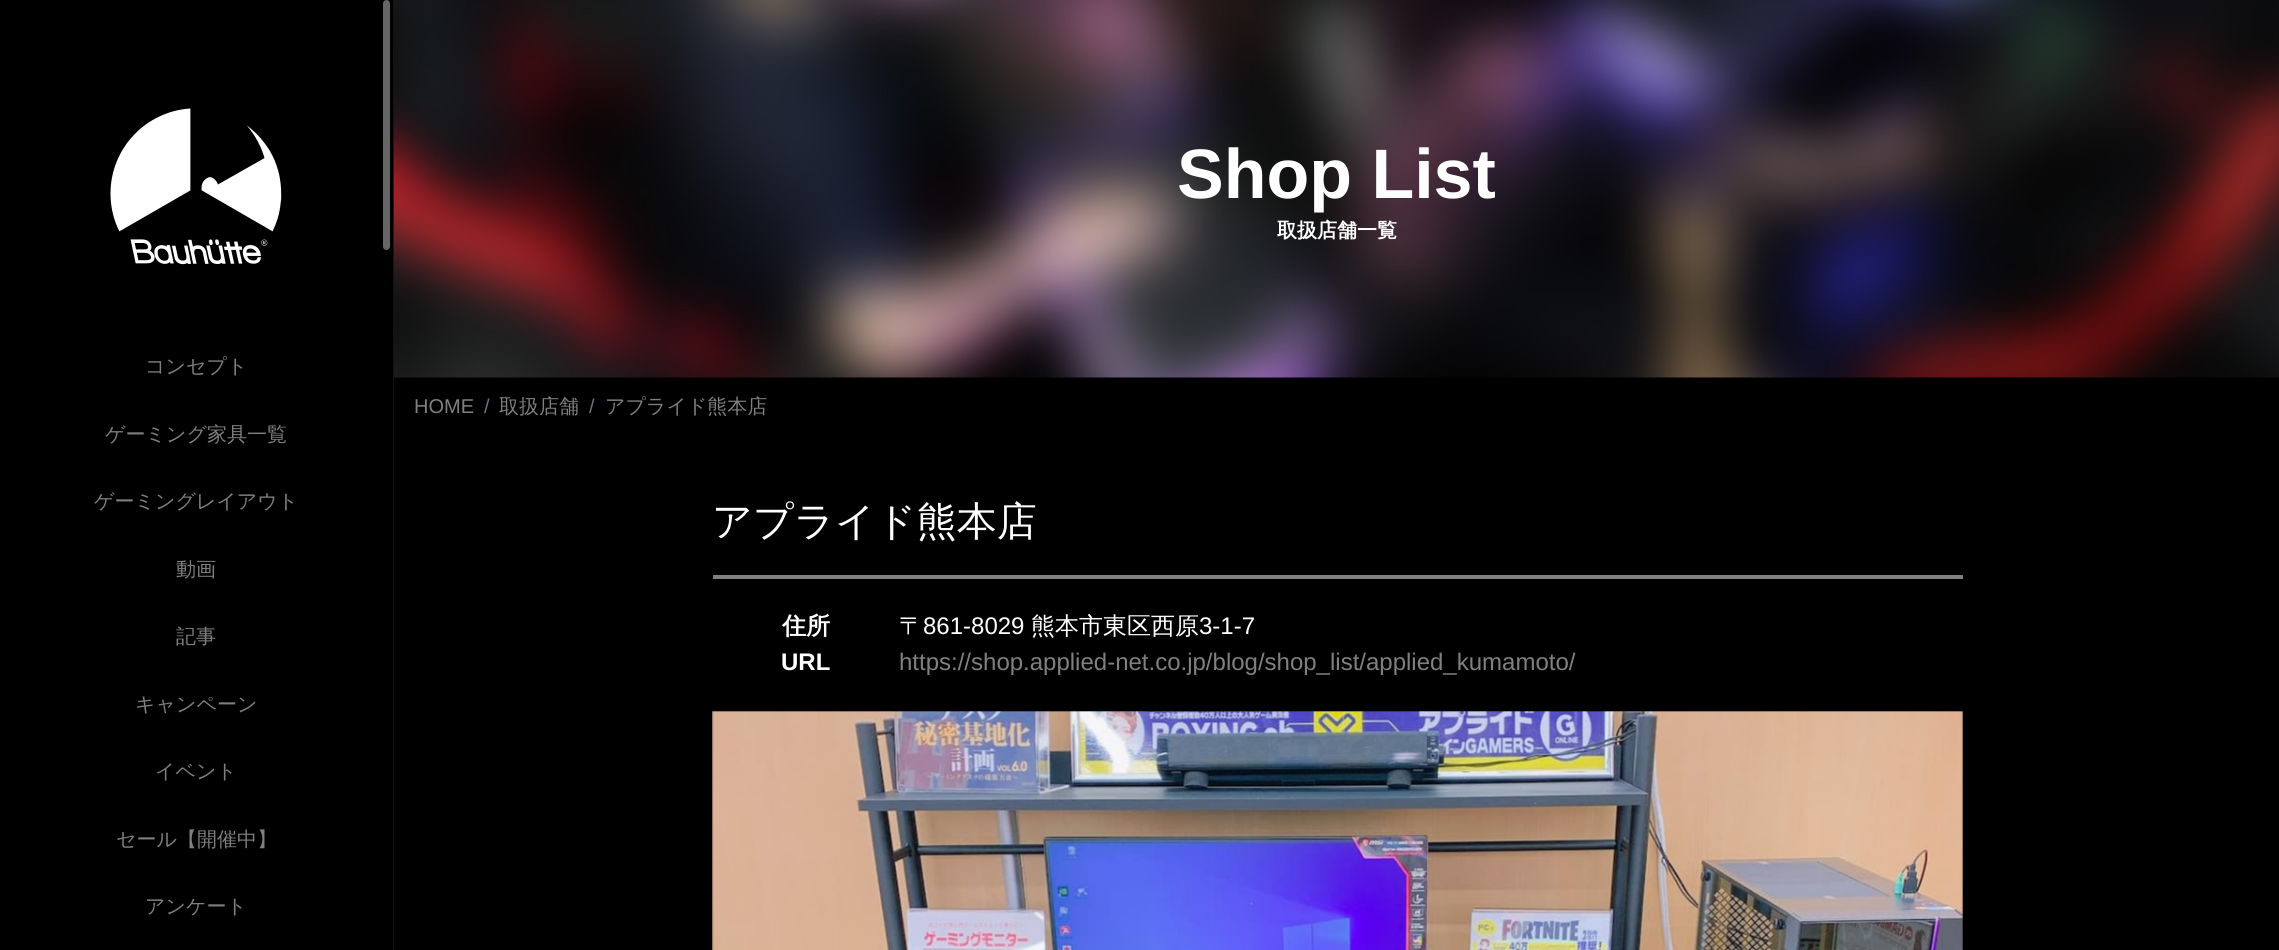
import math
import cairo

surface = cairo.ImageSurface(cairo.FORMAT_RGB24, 2279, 950)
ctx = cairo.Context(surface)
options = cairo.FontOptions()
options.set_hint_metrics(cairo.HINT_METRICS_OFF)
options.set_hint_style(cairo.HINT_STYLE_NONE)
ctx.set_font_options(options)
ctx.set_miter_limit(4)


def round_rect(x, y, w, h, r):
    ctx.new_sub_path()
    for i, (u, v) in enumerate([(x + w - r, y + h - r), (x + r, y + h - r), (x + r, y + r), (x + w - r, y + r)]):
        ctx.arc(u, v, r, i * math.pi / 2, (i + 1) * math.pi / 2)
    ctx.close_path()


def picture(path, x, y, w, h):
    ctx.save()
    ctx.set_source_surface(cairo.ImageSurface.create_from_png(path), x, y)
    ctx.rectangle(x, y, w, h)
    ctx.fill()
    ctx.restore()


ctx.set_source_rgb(0, 0, 0)
ctx.paint()
ctx.set_source_rgb(0.078, 0.078, 0.078)
ctx.rectangle(393, 0, 1, 950)
ctx.fill()
picture("img1.png", 110, 108, 172, 157)
ctx.set_source_rgb(0.4, 0.4, 0.4)
round_rect(383, 0, 7, 250, 3.5)
ctx.fill()
ctx.select_font_face("WenQuanYi Zen Hei Medium")
ctx.set_font_size(20)
ctx.set_source_rgb(0.502, 0.502, 0.502)
ctx.move_to(145, 373)
ctx.show_text("コンセプト")
ctx.move_to(105, 441)
ctx.show_text("ゲーミング家具一覧")
ctx.move_to(94, 508)
ctx.show_text("ゲーミングレイアウト")
ctx.move_to(176, 576)
ctx.show_text("動画")
ctx.move_to(176, 643)
ctx.show_text("記事")
ctx.move_to(135, 711)
ctx.show_text("キャンペーン")
ctx.move_to(155, 778)
ctx.show_text("イベント")
ctx.move_to(116, 846)
ctx.show_text("セール【開催中】")
ctx.move_to(145, 913)
ctx.show_text("アンケート")
picture("img2.png", 393, 0, 1886, 378)
ctx.select_font_face("Liberation Sans", cairo.FONT_SLANT_NORMAL, cairo.FONT_WEIGHT_BOLD)
ctx.set_font_size(70)
ctx.set_source_rgb(1, 1, 1)
ctx.move_to(1177, 198)
ctx.show_text("Shop List")
ctx.select_font_face("WenQuanYi Zen Hei", cairo.FONT_SLANT_NORMAL, cairo.FONT_WEIGHT_BOLD)
ctx.set_font_size(20)
ctx.move_to(1277, 237)
ctx.show_text("取扱店舗一覧")
ctx.select_font_face("Liberation Sans")
ctx.set_source_rgb(0.502, 0.502, 0.502)
ctx.move_to(414, 413)
ctx.show_text("HOME")
ctx.set_source_rgb(0.424, 0.459, 0.49)
ctx.move_to(484, 413)
ctx.show_text("/")
ctx.select_font_face("WenQuanYi Zen Hei Medium")
ctx.set_source_rgb(0.502, 0.502, 0.502)
ctx.move_to(499, 413)
ctx.show_text("取扱店舗")
ctx.select_font_face("Liberation Sans")
ctx.set_source_rgb(0.424, 0.459, 0.49)
ctx.move_to(589, 413)
ctx.show_text("/")
ctx.select_font_face("WenQuanYi Zen Hei Medium")
ctx.set_source_rgb(0.502, 0.502, 0.502)
ctx.move_to(605, 413)
ctx.show_text("アプライド熊本店")
ctx.rectangle(713, 575, 1250, 4)
ctx.fill()
ctx.set_font_size(40)
ctx.set_source_rgb(1, 1, 1)
ctx.move_to(712, 535)
ctx.show_text("アプライド熊本店")
ctx.select_font_face("WenQuanYi Zen Hei", cairo.FONT_SLANT_NORMAL, cairo.FONT_WEIGHT_BOLD)
ctx.set_font_size(24)
ctx.move_to(782, 634)
ctx.show_text("住所")
ctx.select_font_face("WenQuanYi Zen Hei Medium")
ctx.move_to(899, 634)
ctx.show_text("〒")
ctx.select_font_face("Liberation Sans")
ctx.move_to(923, 634)
ctx.show_text("861-8029")
ctx.select_font_face("WenQuanYi Zen Hei Medium")
ctx.move_to(1031, 634)
ctx.show_text("熊本市東区西原")
ctx.select_font_face("Liberation Sans")
ctx.move_to(1199, 634)
ctx.show_text("3-1-7")
ctx.select_font_face("Liberation Sans", cairo.FONT_SLANT_NORMAL, cairo.FONT_WEIGHT_BOLD)
ctx.move_to(781, 670)
ctx.show_text("URL")
ctx.select_font_face("Liberation Sans")
ctx.set_source_rgb(0.502, 0.502, 0.502)
ctx.move_to(899, 670)
ctx.show_text("https://shop.applied-net.co.jp/blog/shop_list/applied_kumamoto/")
picture("img3.png", 712, 711, 1251, 239)
surface.write_to_png("page.png")
